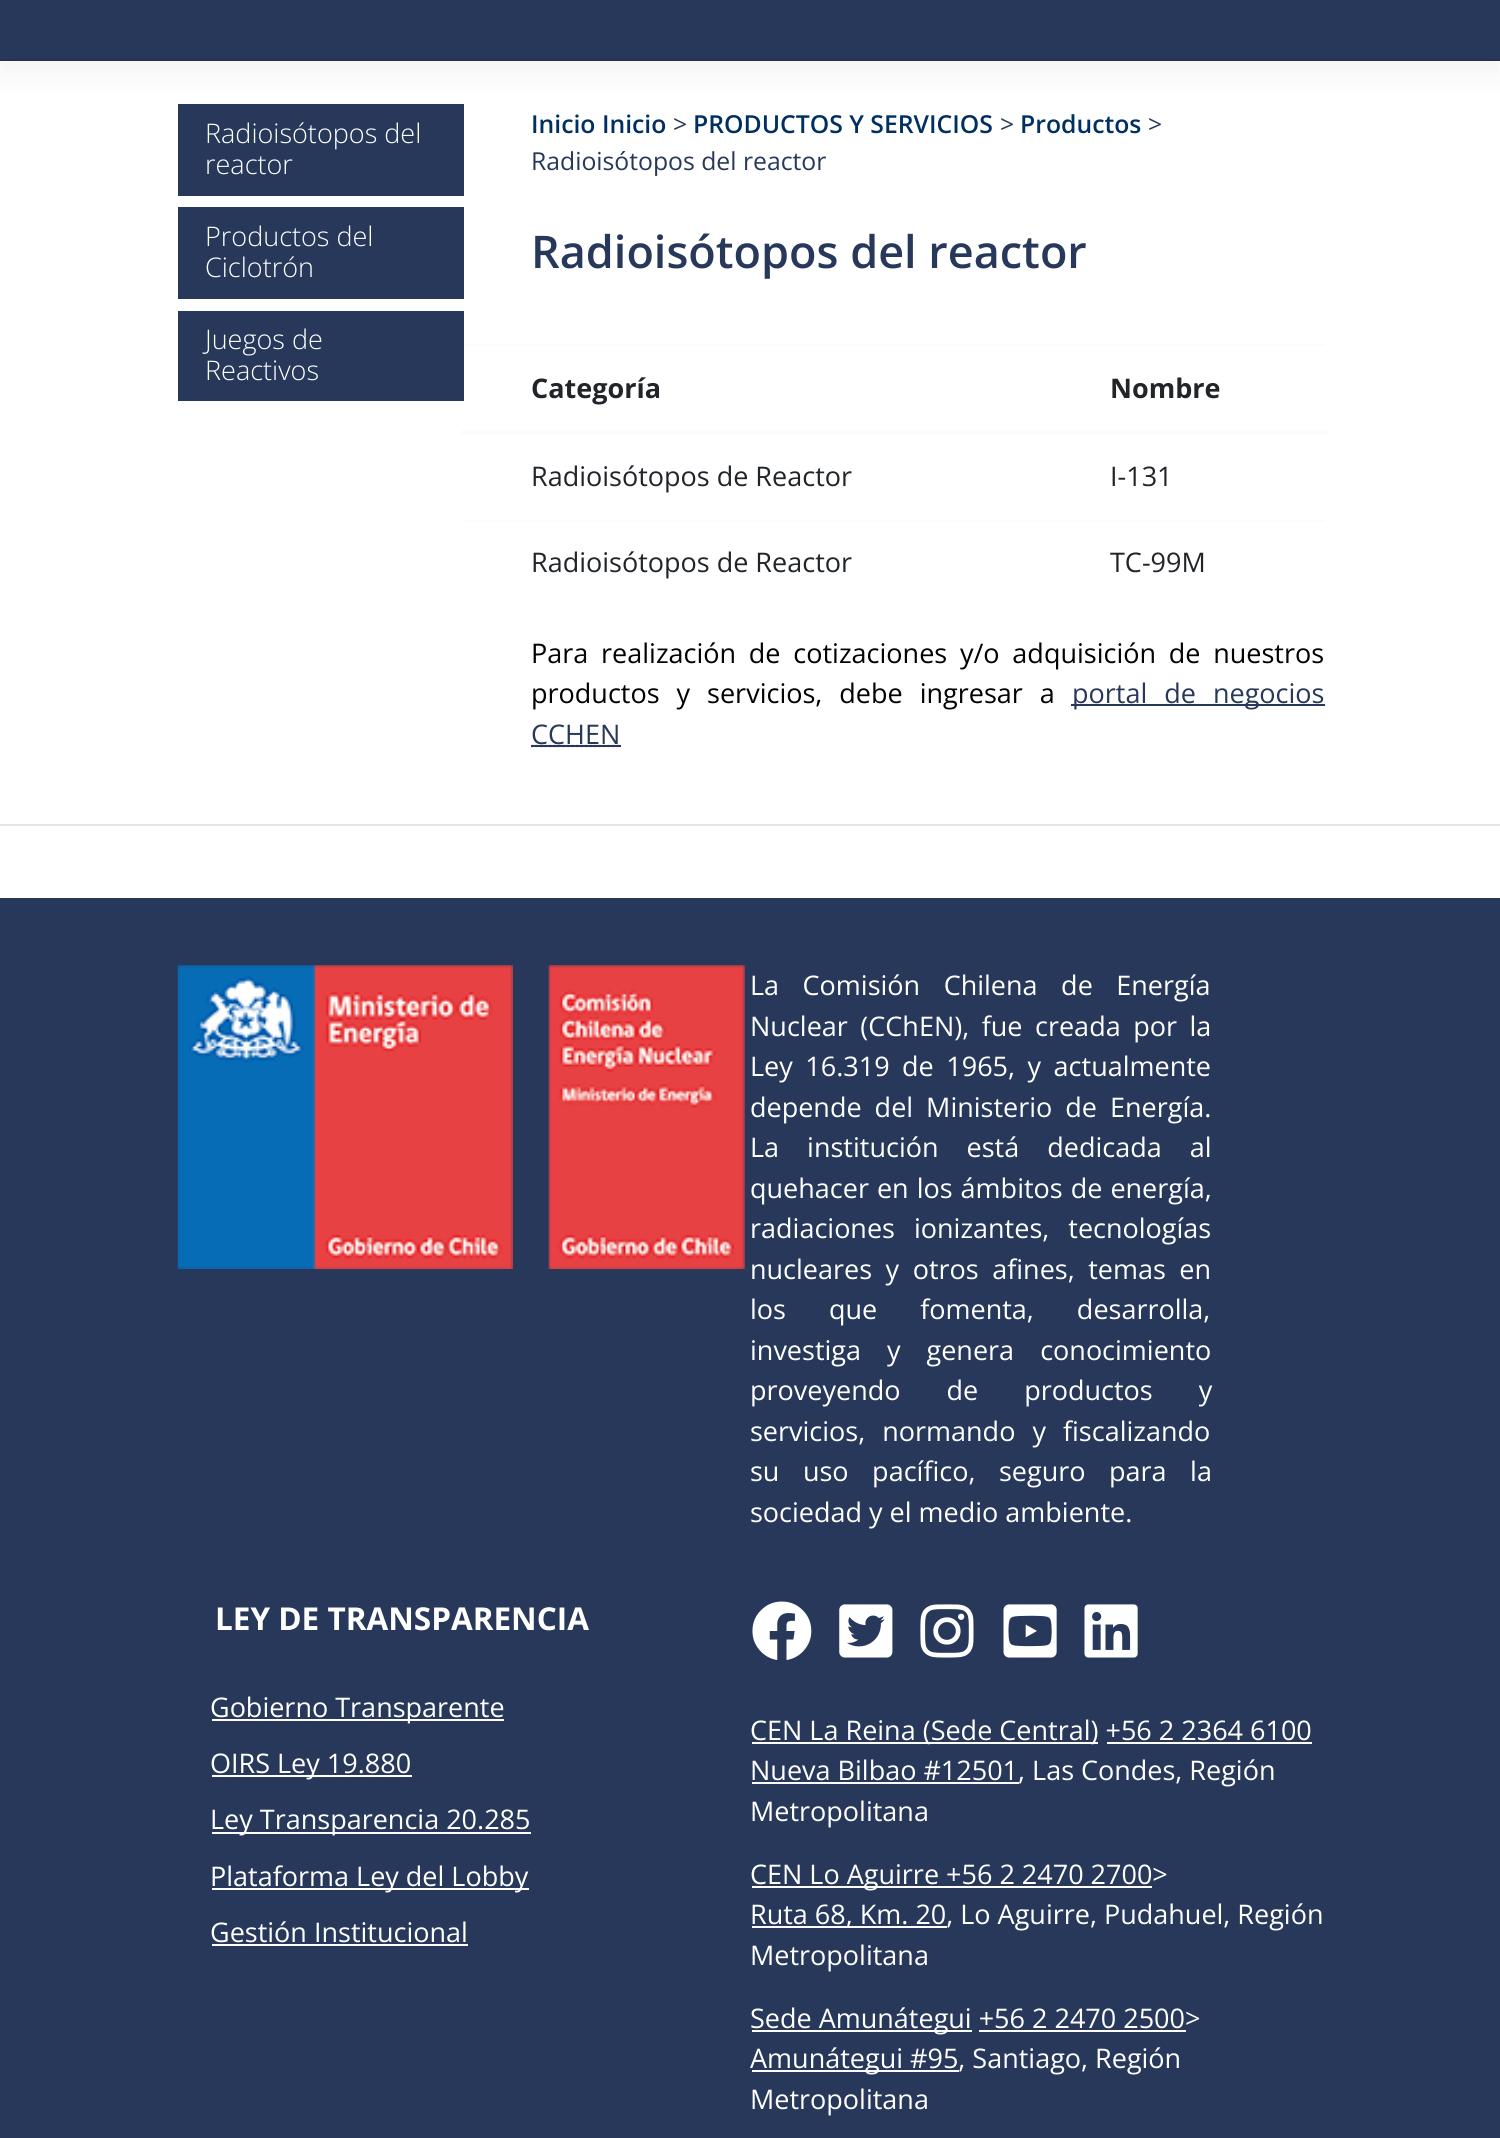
import math
import cairo

surface = cairo.ImageSurface(cairo.FORMAT_RGB24, 1500, 2138)
ctx = cairo.Context(surface)
options = cairo.FontOptions()
options.set_hint_metrics(cairo.HINT_METRICS_OFF)
options.set_hint_style(cairo.HINT_STYLE_NONE)
ctx.set_font_options(options)
ctx.set_miter_limit(4)


def spaced_text(x, y, s, letter, word):
    ctx.move_to(x, y)
    for ch in s:
        ctx.show_text(ch)
        ctx.rel_move_to(letter + word * (ch == ' '), 0)


def round_rect(x, y, w, h, r):
    ctx.new_sub_path()
    for i, (u, v) in enumerate([(x + w - r, y + h - r), (x + r, y + h - r), (x + r, y + r), (x + w - r, y + r)]):
        ctx.arc(u, v, r, i * math.pi / 2, (i + 1) * math.pi / 2)
    ctx.close_path()


def shadow(x, y, w, h, r, blur, alpha):
    ctx.push_group_with_content(cairo.CONTENT_ALPHA)
    ctx.set_operator(cairo.OPERATOR_SOURCE)
    for i in range(15, -16, -2):
        e = blur * i / 6
        if min(w, h) + 2 * e > 0:
            ctx.set_source_rgba(0, 0, 0, alpha * math.erfc((i - 1) / 8.5) / 2)
            round_rect(x - e, y - e, w + 2 * e, h + 2 * e, max(0, min(r + e + blur * .6, min(w, h) / 2 + e)))
            ctx.fill()
    ctx.mask(ctx.pop_group())


def picture(path, x, y, w, h):
    ctx.save()
    ctx.set_source_surface(cairo.ImageSurface.create_from_png(path), x, y)
    ctx.rectangle(x, y, w, h)
    ctx.fill()
    ctx.restore()


ctx.set_source_rgb(1, 1, 1)
ctx.paint()
ctx.set_source_rgb(0, 0, 0)
shadow(0, 14, 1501, 60, 0, 14.5, 0.05)
ctx.set_source_rgb(0.153, 0.22, 0.353)
ctx.rectangle(0, 0, 1500, 59)
ctx.fill()
ctx.set_source_rgb(0.137, 0.196, 0.318)
ctx.rectangle(0, 59, 1500, 2)
ctx.fill()
ctx.set_source_rgb(0.153, 0.22, 0.353)
ctx.rectangle(178, 104, 286, 92)
ctx.fill()
ctx.select_font_face("Open Sans Light")
ctx.set_font_size(27)
ctx.set_source_rgb(1, 1, 1)
ctx.move_to(205, 143)
ctx.show_text("Radioisótopos del")
ctx.move_to(205, 174)
ctx.show_text("reactor")
ctx.set_source_rgb(0.153, 0.22, 0.353)
ctx.rectangle(178, 207, 286, 92)
ctx.fill()
ctx.set_source_rgb(1, 1, 1)
ctx.move_to(205, 246)
ctx.show_text("Productos del")
ctx.move_to(205, 277)
ctx.show_text("Ciclotrón")
ctx.set_source_rgb(0.153, 0.22, 0.353)
ctx.rectangle(178, 311, 286, 90)
ctx.fill()
ctx.set_source_rgb(1, 1, 1)
ctx.move_to(205, 349)
ctx.show_text("Juegos de")
ctx.move_to(205, 380)
ctx.show_text("Reactivos")
ctx.select_font_face("Open Sans SemiBold")
ctx.set_font_size(24.75)
ctx.set_source_rgb(0, 0.184, 0.384)
ctx.move_to(531, 133)
ctx.show_text("Inicio Inicio")
ctx.select_font_face("Open Sans")
ctx.set_source_rgb(0.153, 0.22, 0.353)
ctx.move_to(673, 133)
ctx.show_text(">")
ctx.select_font_face("Open Sans SemiBold")
ctx.set_source_rgb(0, 0.184, 0.384)
ctx.move_to(693, 133)
ctx.show_text("PRODUCTOS Y SERVICIOS")
ctx.select_font_face("Open Sans")
ctx.set_source_rgb(0.153, 0.22, 0.353)
ctx.move_to(1000, 133)
ctx.show_text(">")
ctx.select_font_face("Open Sans SemiBold")
ctx.set_source_rgb(0, 0.184, 0.384)
ctx.move_to(1020, 133)
ctx.show_text("Productos")
ctx.select_font_face("Open Sans")
ctx.set_source_rgb(0.153, 0.22, 0.353)
ctx.move_to(1148, 133)
ctx.show_text(">")
ctx.move_to(531, 170)
ctx.show_text("Radioisótopos del reactor")
ctx.select_font_face("Open Sans SemiBold")
ctx.set_font_size(45)
ctx.move_to(531, 268)
ctx.show_text("Radioisótopos del reactor")
ctx.select_font_face("Open Sans", cairo.FONT_SLANT_NORMAL, cairo.FONT_WEIGHT_BOLD)
ctx.set_font_size(27)
ctx.set_source_rgb(0.129, 0.145, 0.161)
ctx.move_to(531, 398)
ctx.show_text("Categoría")
ctx.set_source_rgb(0.984, 0.988, 0.988)
ctx.rectangle(464, 344, 861, 2)
ctx.fill()
ctx.rectangle(461, 430, 867, 5)
ctx.fill()
ctx.set_source_rgb(0.129, 0.145, 0.161)
ctx.move_to(1110, 398)
ctx.show_text("Nombre")
ctx.select_font_face("Open Sans")
ctx.move_to(531, 486)
ctx.show_text("Radioisótopos de Reactor")
ctx.move_to(1110, 486)
ctx.show_text("I-131")
ctx.move_to(531, 572)
ctx.show_text("Radioisótopos de Reactor")
ctx.set_source_rgb(0.984, 0.988, 0.988)
ctx.rectangle(464, 520, 861, 2)
ctx.fill()
ctx.set_source_rgb(0.129, 0.145, 0.161)
ctx.move_to(1110, 572)
ctx.show_text("TC-99M")
ctx.set_source_rgb(0, 0, 0)
spaced_text(531, 663, "Para realización de cotizaciones y/o adquisición de nuestros", 0, 5.75)
spaced_text(531, 703, "productos y servicios, debe ingresar a", 0, 10)
ctx.set_source_rgb(0.153, 0.22, 0.353)
ctx.rectangle(1071, 704, 254, 2)
ctx.fill()
spaced_text(1072, 703, "portal de negocios", 0, 10)
ctx.new_path()
ctx.move_to(531, 746)
ctx.line_to(620.5, 746)
ctx.set_line_width(2.2)
ctx.set_dash([2.25, 2.25])
ctx.stroke()
ctx.move_to(531, 744)
ctx.show_text("CCHEN")
ctx.rectangle(531, 745, 90, 2)
ctx.fill()
ctx.set_source_rgb(0.902, 0.902, 0.902)
ctx.rectangle(0, 824, 1500, 2)
ctx.fill()
ctx.set_source_rgb(0.153, 0.22, 0.353)
ctx.rectangle(0, 898, 1500, 1240)
ctx.fill()
picture("img1.png", 177, 965, 336, 304)
picture("img2.png", 548, 965, 197, 304)
ctx.set_source_rgb(1, 1, 1)
spaced_text(750, 995, "La Comisión Chilena de Energía", 0, 16.5)
spaced_text(750, 1036, "Nuclear (CChEN), fue creada por la", 0, 5.5)
spaced_text(750, 1076, "Ley 16.319 de 1965, y actualmente", 0, 5.5)
spaced_text(750, 1117, "depende del Ministerio de Energía.", 0, 6)
spaced_text(750, 1157, "La institución está dedicada al", 0, 21)
spaced_text(750, 1198, "quehacer en los ámbitos de energía,", 0, 1)
spaced_text(750, 1238, "radiaciones ionizantes, tecnologías", 0, 12)
spaced_text(750, 1279, "nucleares y otros afines, temas en", 0, 6.5)
spaced_text(750, 1319, "los que fomenta, desarrolla,", 0, 36)
spaced_text(750, 1360, "investiga y genera conocimiento", 0, 19)
spaced_text(750, 1400, "proveyendo de productos y", 0, 39)
spaced_text(750, 1441, "servicios, normando y fiscalizando", 0, 10)
spaced_text(750, 1481, "su uso pacífico, seguro para la", 0, 16.5)
ctx.move_to(750, 1522)
ctx.show_text("sociedad y el medio ambiente.")
ctx.select_font_face("Open Sans", cairo.FONT_SLANT_NORMAL, cairo.FONT_WEIGHT_BOLD)
ctx.set_font_size(31.5)
ctx.move_to(215, 1630)
ctx.show_text("LEY DE TRANSPARENCIA")
ctx.rectangle(212, 1719, 292, 2)
ctx.fill()
ctx.select_font_face("Open Sans")
ctx.set_font_size(27)
ctx.move_to(210, 1717)
ctx.show_text("Gobierno Transparente")
ctx.rectangle(212, 1775, 200, 2)
ctx.fill()
ctx.move_to(210, 1773)
ctx.show_text("OIRS Ley 19.880")
ctx.rectangle(212, 1832, 319, 2)
ctx.fill()
ctx.move_to(210, 1829)
ctx.show_text("Ley Transparencia 20.285")
ctx.rectangle(212, 1888, 317, 2)
ctx.fill()
ctx.move_to(210, 1886)
ctx.show_text("Plataforma Ley del Lobby")
ctx.move_to(210, 1942)
ctx.show_text("Gestión Institucional")
ctx.rectangle(212, 1944, 256, 2)
ctx.fill()
picture("img3.png", 752, 1601, 60, 59)
picture("img4.png", 839, 1604, 54, 54)
picture("img5.png", 920, 1604, 54, 54)
picture("img6.png", 1003, 1604, 54, 54)
picture("img7.png", 1084, 1604, 54, 54)
ctx.rectangle(752, 1742, 346, 2)
ctx.fill()
ctx.move_to(750, 1740)
ctx.show_text("CEN La Reina (Sede Central) +56 2 2364 6100")
ctx.rectangle(1107, 1742, 205, 2)
ctx.fill()
ctx.rectangle(752, 1782, 267, 2)
ctx.fill()
ctx.move_to(750, 1780)
ctx.show_text("Nueva Bilbao #12501, Las Condes, Región")
ctx.move_to(750, 1821)
ctx.show_text("Metropolitana")
ctx.rectangle(752, 1886, 400, 2)
ctx.fill()
ctx.move_to(750, 1884)
ctx.show_text("CEN Lo Aguirre +56 2 2470 2700>")
ctx.rectangle(752, 1926, 195, 2)
ctx.fill()
ctx.move_to(750, 1924)
ctx.show_text("Ruta 68, Km. 20, Lo Aguirre, Pudahuel, Región")
ctx.move_to(750, 1965)
ctx.show_text("Metropolitana")
ctx.rectangle(752, 2030, 220, 2)
ctx.fill()
ctx.move_to(750, 2028)
ctx.show_text("Sede Amunátegui +56 2 2470 2500>")
ctx.rectangle(979, 2030, 207, 2)
ctx.fill()
ctx.rectangle(752, 2070, 207, 2)
ctx.fill()
ctx.move_to(750, 2068)
ctx.show_text("Amunátegui #95, Santiago, Región")
ctx.move_to(750, 2109)
ctx.show_text("Metropolitana")
surface.write_to_png("page.png")
